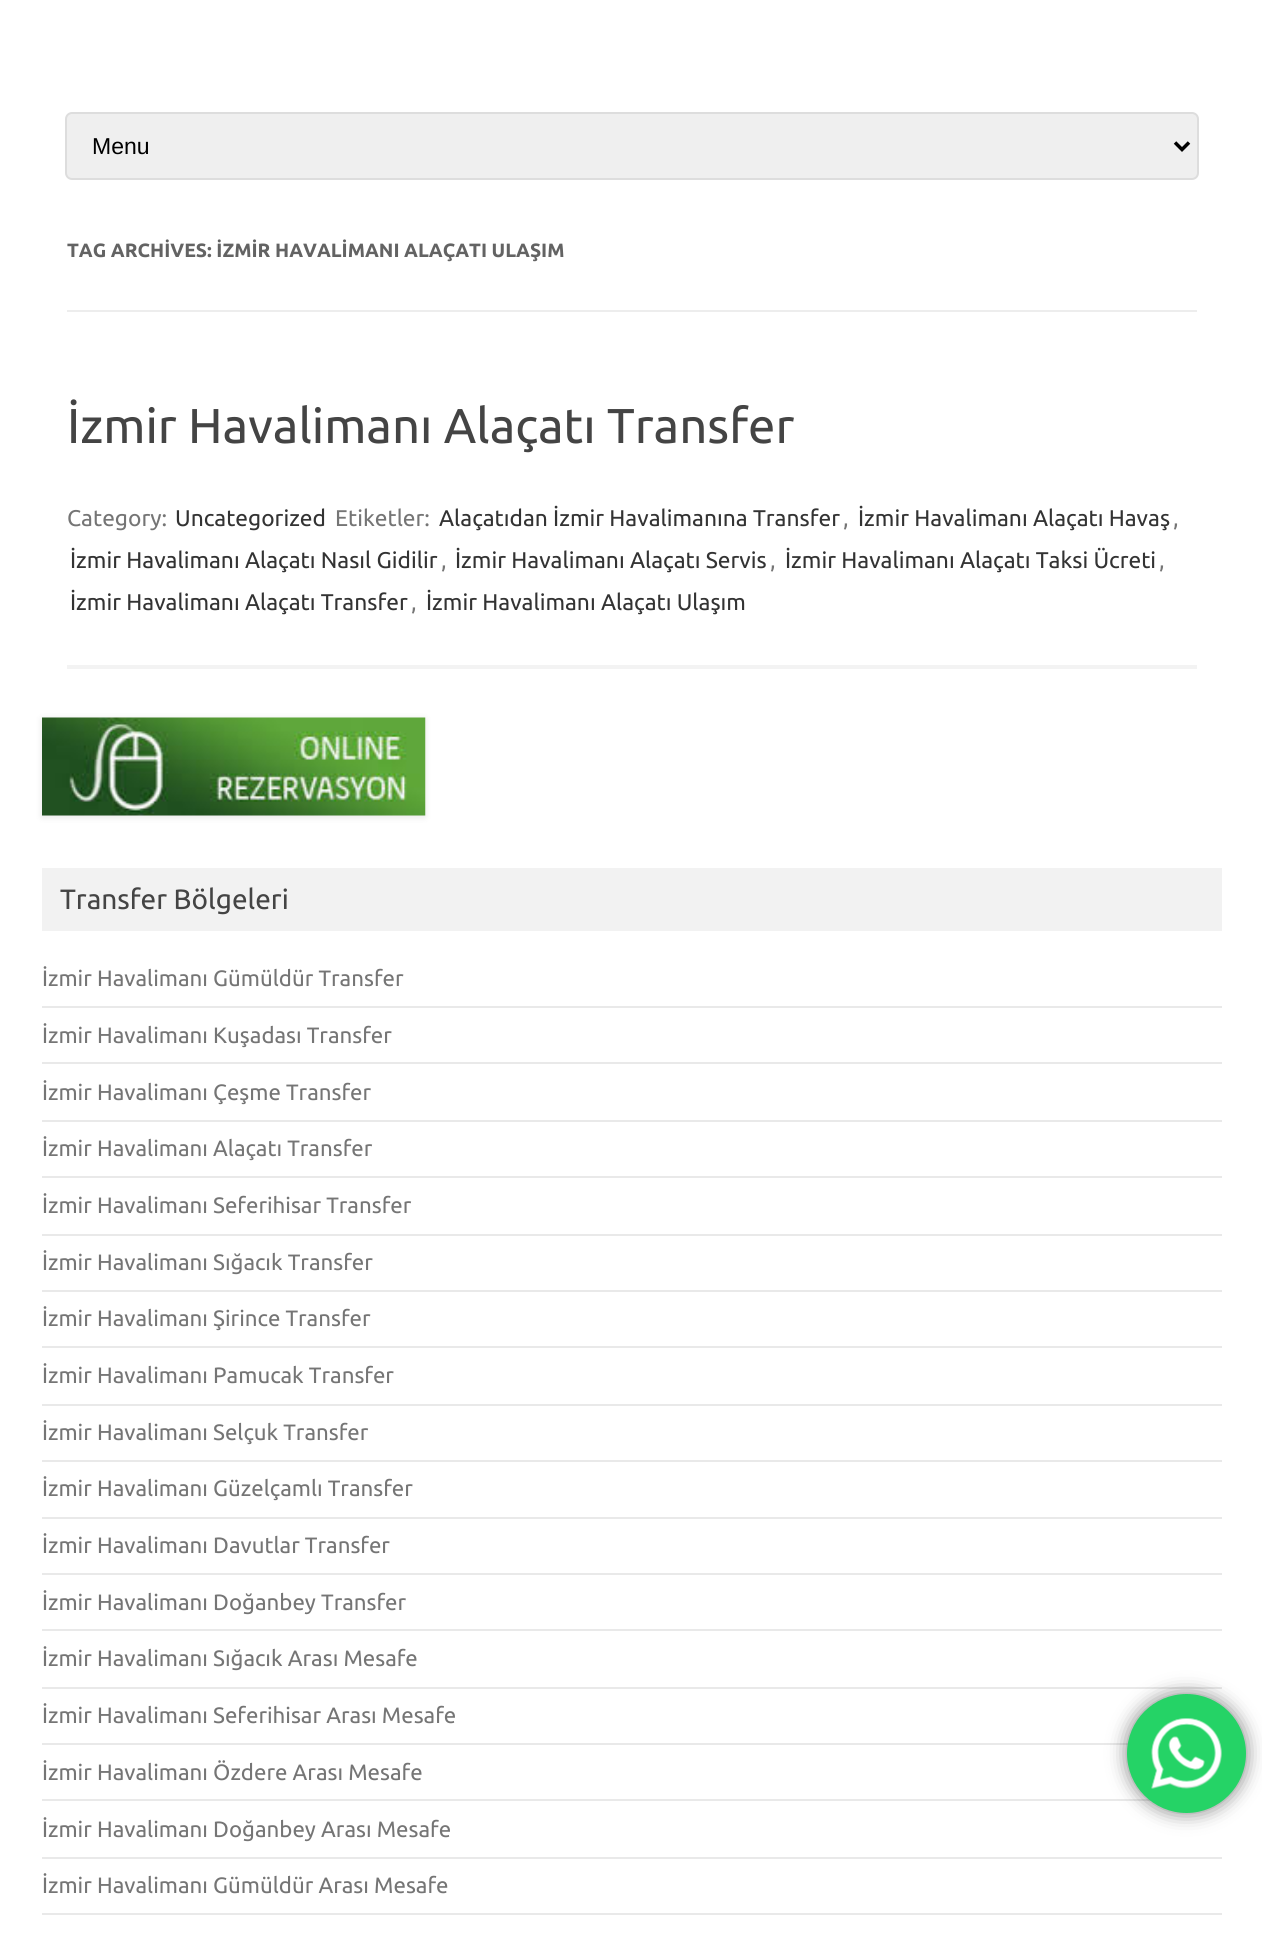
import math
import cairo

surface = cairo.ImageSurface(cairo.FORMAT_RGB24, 1262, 1934)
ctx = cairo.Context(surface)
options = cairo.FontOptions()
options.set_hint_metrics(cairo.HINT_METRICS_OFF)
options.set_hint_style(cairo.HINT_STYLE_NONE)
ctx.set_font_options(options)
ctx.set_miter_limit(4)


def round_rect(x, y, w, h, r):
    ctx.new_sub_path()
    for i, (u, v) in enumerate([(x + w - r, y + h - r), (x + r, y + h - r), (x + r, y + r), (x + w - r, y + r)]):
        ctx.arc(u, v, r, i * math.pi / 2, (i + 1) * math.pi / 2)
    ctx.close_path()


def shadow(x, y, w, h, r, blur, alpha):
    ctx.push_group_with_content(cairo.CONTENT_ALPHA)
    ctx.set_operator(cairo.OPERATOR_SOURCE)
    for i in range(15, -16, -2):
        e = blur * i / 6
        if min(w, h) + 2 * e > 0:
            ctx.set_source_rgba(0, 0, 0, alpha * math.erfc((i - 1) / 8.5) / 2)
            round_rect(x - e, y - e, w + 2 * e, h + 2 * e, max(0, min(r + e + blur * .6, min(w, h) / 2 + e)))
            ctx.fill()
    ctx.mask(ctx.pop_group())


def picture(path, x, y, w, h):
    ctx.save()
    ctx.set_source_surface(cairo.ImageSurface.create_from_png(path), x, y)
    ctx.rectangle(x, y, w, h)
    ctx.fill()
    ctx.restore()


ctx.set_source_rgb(1, 1, 1)
ctx.paint()
ctx.set_source_rgb(0.937, 0.937, 0.937)
round_rect(66, 113, 1132, 66, 6)
ctx.fill_preserve()
ctx.set_source_rgb(0.867, 0.867, 0.867)
ctx.stroke()
ctx.new_path()
ctx.move_to(1175, 142.5)
ctx.line_to(1182, 149.5)
ctx.line_to(1189, 142.5)
ctx.set_source_rgb(0, 0, 0)
ctx.set_line_width(3.5)
ctx.stroke()
ctx.select_font_face("Liberation Sans")
ctx.set_font_size(23)
ctx.move_to(92, 154)
ctx.show_text("Menu")
ctx.set_source_rgb(0.929, 0.929, 0.929)
ctx.rectangle(67, 310, 1130, 2)
ctx.fill()
ctx.select_font_face("Ubuntu", cairo.FONT_SLANT_NORMAL, cairo.FONT_WEIGHT_BOLD)
ctx.set_font_size(19.25)
ctx.set_source_rgb(0.388, 0.388, 0.388)
ctx.move_to(67, 257)
ctx.show_text("TAG ARCHİVES: İZMİR HAVALİMANI ALAÇATI ULAŞIM")
ctx.set_source_rgb(0.953, 0.953, 0.953)
ctx.rectangle(67, 665, 1130, 4)
ctx.fill()
ctx.select_font_face("Ubuntu")
ctx.set_font_size(49)
ctx.set_source_rgb(0.267, 0.267, 0.267)
ctx.move_to(67, 443)
ctx.show_text("İzmir Havalimanı Alaçatı Transfer")
ctx.set_font_size(22.75)
ctx.set_source_rgb(0.459, 0.459, 0.459)
ctx.move_to(67, 526)
ctx.show_text("Category:")
ctx.set_source_rgb(0.2, 0.2, 0.2)
ctx.move_to(175, 526)
ctx.show_text("Uncategorized")
ctx.set_source_rgb(0.459, 0.459, 0.459)
ctx.move_to(335, 526)
ctx.show_text("Etiketler:")
ctx.set_source_rgb(0.2, 0.2, 0.2)
ctx.move_to(439, 526)
ctx.show_text("Alaçatıdan İzmir Havalimanına Transfer")
ctx.set_source_rgb(0.459, 0.459, 0.459)
ctx.move_to(843, 526)
ctx.show_text(",")
ctx.set_source_rgb(0.2, 0.2, 0.2)
ctx.move_to(858, 526)
ctx.show_text("İzmir Havalimanı Alaçatı Havaş")
ctx.set_source_rgb(0.459, 0.459, 0.459)
ctx.move_to(1173, 526)
ctx.show_text(",")
ctx.set_source_rgb(0.2, 0.2, 0.2)
ctx.move_to(70, 568)
ctx.show_text("İzmir Havalimanı Alaçatı Nasıl Gidilir")
ctx.set_source_rgb(0.459, 0.459, 0.459)
ctx.move_to(441, 568)
ctx.show_text(",")
ctx.set_source_rgb(0.2, 0.2, 0.2)
ctx.move_to(455, 568)
ctx.show_text("İzmir Havalimanı Alaçatı Servis")
ctx.set_source_rgb(0.459, 0.459, 0.459)
ctx.move_to(770, 568)
ctx.show_text(",")
ctx.set_source_rgb(0.2, 0.2, 0.2)
ctx.move_to(785, 568)
ctx.show_text("İzmir Havalimanı Alaçatı Taksi Ücreti")
ctx.set_source_rgb(0.459, 0.459, 0.459)
ctx.move_to(1159, 568)
ctx.show_text(",")
ctx.set_source_rgb(0.2, 0.2, 0.2)
ctx.move_to(70, 610)
ctx.show_text("İzmir Havalimanı Alaçatı Transfer")
ctx.set_source_rgb(0.459, 0.459, 0.459)
ctx.move_to(411, 610)
ctx.show_text(",")
ctx.set_source_rgb(0.2, 0.2, 0.2)
ctx.move_to(426, 610)
ctx.show_text("İzmir Havalimanı Alaçatı Ulaşım")
ctx.set_source_rgb(0, 0, 0)
shadow(42, 719, 383, 98, 0, 3.5, 0.1)
picture("img1.png", 42, 717, 384, 99)
ctx.set_source_rgb(0.949, 0.949, 0.949)
ctx.rectangle(42, 868, 1180, 63)
ctx.fill()
ctx.set_font_size(28)
ctx.set_source_rgb(0.267, 0.267, 0.267)
ctx.move_to(60, 909)
ctx.show_text("Transfer Bölgeleri")
ctx.set_source_rgb(0.914, 0.914, 0.914)
ctx.rectangle(42, 1006, 1180, 2)
ctx.fill()
ctx.set_font_size(22.25)
ctx.set_source_rgb(0.459, 0.459, 0.459)
ctx.move_to(42, 986)
ctx.show_text("İzmir Havalimanı Gümüldür Transfer")
ctx.set_source_rgb(0.914, 0.914, 0.914)
ctx.rectangle(42, 1062, 1180, 2)
ctx.fill()
ctx.set_source_rgb(0.459, 0.459, 0.459)
ctx.move_to(42, 1043)
ctx.show_text("İzmir Havalimanı Kuşadası Transfer")
ctx.set_source_rgb(0.914, 0.914, 0.914)
ctx.rectangle(42, 1120, 1180, 2)
ctx.fill()
ctx.set_source_rgb(0.459, 0.459, 0.459)
ctx.move_to(42, 1100)
ctx.show_text("İzmir Havalimanı Çeşme Transfer")
ctx.set_source_rgb(0.914, 0.914, 0.914)
ctx.rectangle(42, 1176, 1180, 2)
ctx.fill()
ctx.set_source_rgb(0.459, 0.459, 0.459)
ctx.move_to(42, 1156)
ctx.show_text("İzmir Havalimanı Alaçatı Transfer")
ctx.set_source_rgb(0.914, 0.914, 0.914)
ctx.rectangle(42, 1234, 1180, 2)
ctx.fill()
ctx.set_source_rgb(0.459, 0.459, 0.459)
ctx.move_to(42, 1213)
ctx.show_text("İzmir Havalimanı Seferihisar Transfer")
ctx.set_source_rgb(0.914, 0.914, 0.914)
ctx.rectangle(42, 1290, 1180, 2)
ctx.fill()
ctx.set_source_rgb(0.459, 0.459, 0.459)
ctx.move_to(42, 1270)
ctx.show_text("İzmir Havalimanı Sığacık Transfer")
ctx.set_source_rgb(0.914, 0.914, 0.914)
ctx.rectangle(42, 1346, 1180, 2)
ctx.fill()
ctx.set_source_rgb(0.459, 0.459, 0.459)
ctx.move_to(42, 1326)
ctx.show_text("İzmir Havalimanı Şirince Transfer")
ctx.set_source_rgb(0.914, 0.914, 0.914)
ctx.rectangle(42, 1404, 1180, 2)
ctx.fill()
ctx.set_source_rgb(0.459, 0.459, 0.459)
ctx.move_to(42, 1383)
ctx.show_text("İzmir Havalimanı Pamucak Transfer")
ctx.set_source_rgb(0.914, 0.914, 0.914)
ctx.rectangle(42, 1460, 1180, 2)
ctx.fill()
ctx.set_source_rgb(0.459, 0.459, 0.459)
ctx.move_to(42, 1440)
ctx.show_text("İzmir Havalimanı Selçuk Transfer")
ctx.set_source_rgb(0.914, 0.914, 0.914)
ctx.rectangle(42, 1517, 1180, 2)
ctx.fill()
ctx.set_source_rgb(0.459, 0.459, 0.459)
ctx.move_to(42, 1496)
ctx.show_text("İzmir Havalimanı Güzelçamlı Transfer")
ctx.set_source_rgb(0.914, 0.914, 0.914)
ctx.rectangle(42, 1573, 1180, 2)
ctx.fill()
ctx.set_source_rgb(0.459, 0.459, 0.459)
ctx.move_to(42, 1553)
ctx.show_text("İzmir Havalimanı Davutlar Transfer")
ctx.set_source_rgb(0.914, 0.914, 0.914)
ctx.rectangle(42, 1629, 1180, 2)
ctx.fill()
ctx.set_source_rgb(0.459, 0.459, 0.459)
ctx.move_to(42, 1610)
ctx.show_text("İzmir Havalimanı Doğanbey Transfer")
ctx.set_source_rgb(0.914, 0.914, 0.914)
ctx.rectangle(42, 1687, 1180, 2)
ctx.fill()
ctx.set_source_rgb(0.459, 0.459, 0.459)
ctx.move_to(42, 1666)
ctx.show_text("İzmir Havalimanı Sığacık Arası Mesafe")
ctx.set_source_rgb(0.914, 0.914, 0.914)
ctx.rectangle(42, 1743, 1086, 2)
ctx.fill()
ctx.set_source_rgb(0.459, 0.459, 0.459)
ctx.move_to(42, 1723)
ctx.show_text("İzmir Havalimanı Seferihisar Arası Mesafe")
ctx.set_source_rgb(0.914, 0.914, 0.914)
ctx.rectangle(42, 1799, 1109, 2)
ctx.fill()
ctx.set_source_rgb(0.459, 0.459, 0.459)
ctx.move_to(42, 1780)
ctx.show_text("İzmir Havalimanı Özdere Arası Mesafe")
ctx.set_source_rgb(0.914, 0.914, 0.914)
ctx.rectangle(42, 1857, 1180, 2)
ctx.fill()
ctx.set_source_rgb(0.459, 0.459, 0.459)
ctx.move_to(42, 1837)
ctx.show_text("İzmir Havalimanı Doğanbey Arası Mesafe")
ctx.set_source_rgb(0.914, 0.914, 0.914)
ctx.rectangle(42, 1913, 1180, 2)
ctx.fill()
ctx.set_source_rgb(0.459, 0.459, 0.459)
ctx.move_to(42, 1893)
ctx.show_text("İzmir Havalimanı Gümüldür Arası Mesafe")
ctx.set_source_rgb(0, 0, 0)
shadow(1127, 1694, 119, 119, 59.5, 9.5, 0.5)
ctx.set_source_rgb(0.145, 0.827, 0.4)
ctx.arc(1186.5, 1753.5, 59.5, 0, 2 * math.pi)
ctx.fill()
picture("img2.png", 1151, 1718, 71, 71)
surface.write_to_png("page.png")
